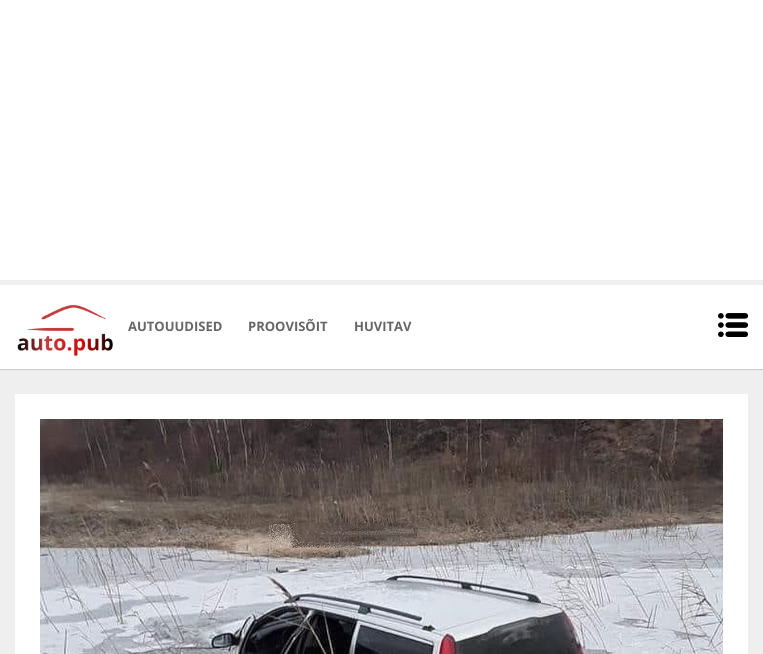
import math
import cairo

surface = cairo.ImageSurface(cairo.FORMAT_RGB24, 763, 654)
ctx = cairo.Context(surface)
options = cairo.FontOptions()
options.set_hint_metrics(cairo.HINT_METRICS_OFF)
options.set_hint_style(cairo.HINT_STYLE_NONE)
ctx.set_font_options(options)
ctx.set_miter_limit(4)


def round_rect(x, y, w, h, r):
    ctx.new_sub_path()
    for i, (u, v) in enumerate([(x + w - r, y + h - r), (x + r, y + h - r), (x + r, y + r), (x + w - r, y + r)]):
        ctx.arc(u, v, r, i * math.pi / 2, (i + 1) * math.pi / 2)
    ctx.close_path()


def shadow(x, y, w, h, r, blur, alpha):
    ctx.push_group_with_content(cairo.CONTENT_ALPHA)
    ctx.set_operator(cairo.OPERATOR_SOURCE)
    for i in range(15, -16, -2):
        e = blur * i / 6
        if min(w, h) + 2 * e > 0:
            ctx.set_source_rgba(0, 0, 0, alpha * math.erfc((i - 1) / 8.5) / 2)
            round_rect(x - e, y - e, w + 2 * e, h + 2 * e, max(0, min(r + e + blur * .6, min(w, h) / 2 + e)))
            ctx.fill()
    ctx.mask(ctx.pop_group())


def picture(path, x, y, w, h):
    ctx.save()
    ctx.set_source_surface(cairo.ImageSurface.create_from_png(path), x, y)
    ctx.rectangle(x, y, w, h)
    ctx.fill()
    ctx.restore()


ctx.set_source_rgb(0.937, 0.937, 0.937)
ctx.paint()
ctx.set_source_rgb(1, 1, 1)
ctx.rectangle(0, 0, 763, 280)
ctx.fill()
ctx.set_source_rgb(0.882, 0.882, 0.882)
ctx.rectangle(0, 369, 763, 1)
ctx.fill()
ctx.set_source_rgb(0, 0, 0)
shadow(0, 286, 763, 84, 0, 0.5, 0.1)
ctx.set_source_rgb(1, 1, 1)
ctx.rectangle(0, 285, 763, 84)
ctx.fill()
picture("img1.png", 17, 304, 96, 52)
ctx.select_font_face("Open Sans", cairo.FONT_SLANT_NORMAL, cairo.FONT_WEIGHT_BOLD)
ctx.set_font_size(13)
ctx.set_source_rgb(0.4, 0.4, 0.4)
ctx.move_to(128, 331)
ctx.show_text("AUTOUUDISED")
ctx.move_to(248, 331)
ctx.show_text("PROOVISÕIT")
ctx.move_to(354, 331)
ctx.show_text("HUVITAV")
picture("img2.png", 718, 313, 30, 24)
ctx.set_source_rgb(1, 1, 1)
ctx.rectangle(15, 394, 733, 260)
ctx.fill()
picture("img3.png", 40, 419, 683, 235)
surface.write_to_png("page.png")
